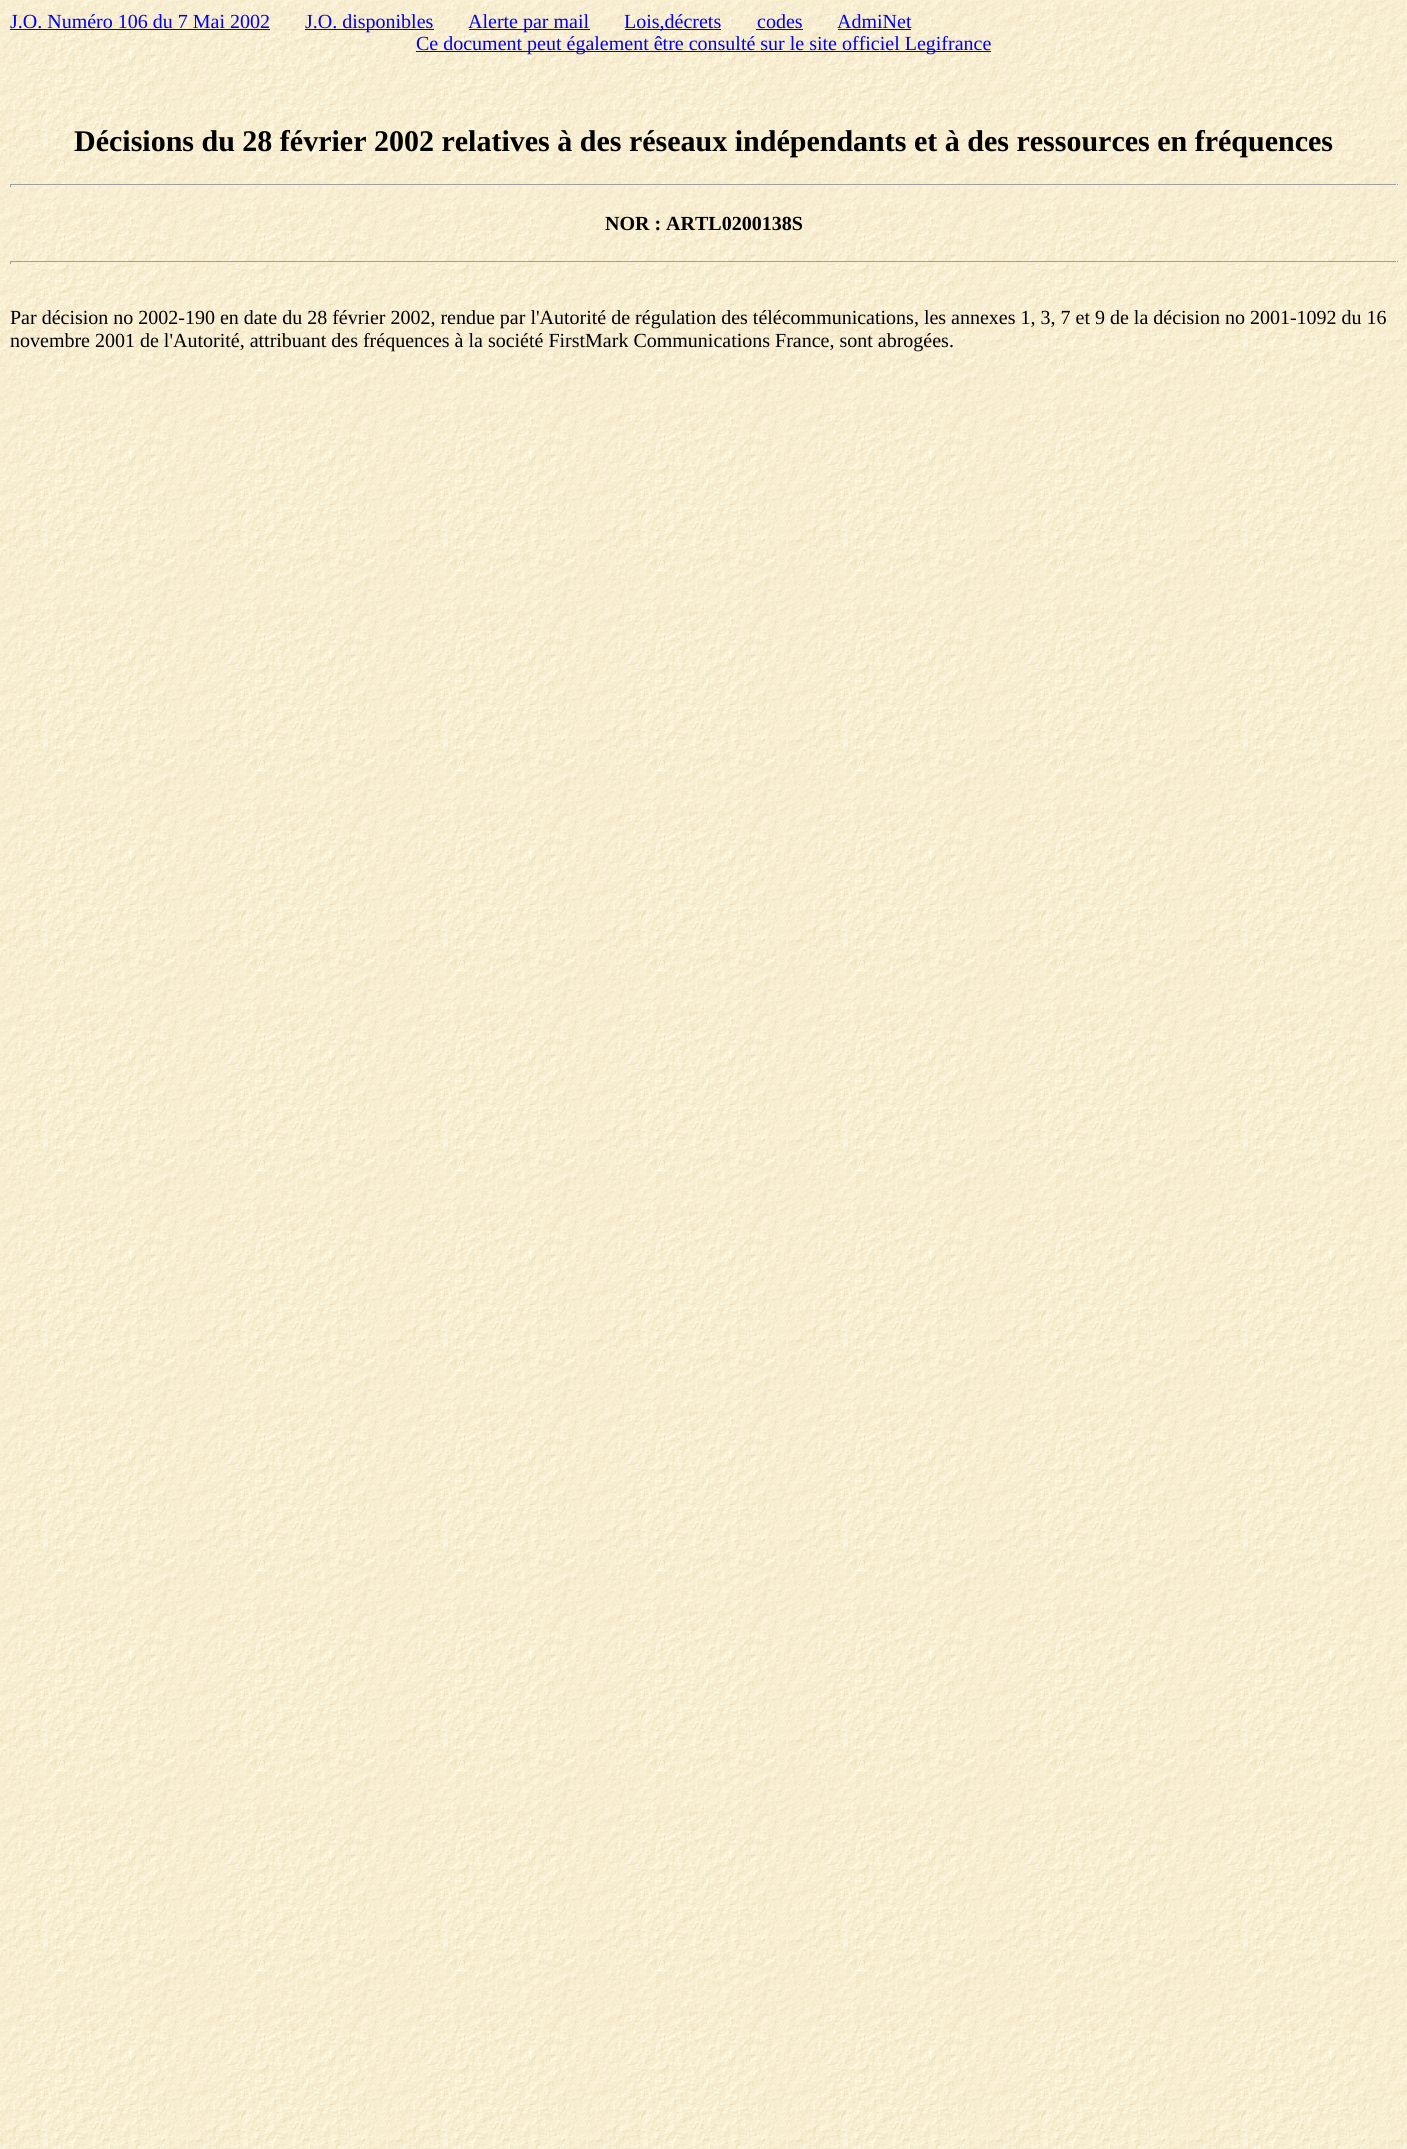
import math
import cairo

surface = cairo.ImageSurface(cairo.FORMAT_RGB24, 1407, 2149)
ctx = cairo.Context(surface)
options = cairo.FontOptions()
options.set_hint_metrics(cairo.HINT_METRICS_OFF)
options.set_hint_style(cairo.HINT_STYLE_NONE)
ctx.set_font_options(options)
ctx.set_miter_limit(4)


def picture(path, x, y, w, h):
    ctx.save()
    ctx.set_source_surface(cairo.ImageSurface.create_from_png(path), x, y)
    ctx.rectangle(x, y, w, h)
    ctx.fill()
    ctx.restore()


ctx.set_source_rgb(1, 1, 1)
ctx.paint()
picture("img1.png", 0, 0, 1407, 2149)
ctx.select_font_face("Liberation Serif")
ctx.set_font_size(20)
ctx.set_source_rgb(0, 0, 0.933)
ctx.move_to(10, 28)
ctx.show_text("J.O. Numéro 106 du 7 Mai 2002")
ctx.rectangle(10, 29, 260, 1)
ctx.fill()
ctx.rectangle(305, 29, 129, 1)
ctx.fill()
ctx.move_to(305, 28)
ctx.show_text("J.O. disponibles")
ctx.rectangle(469, 29, 121, 1)
ctx.fill()
ctx.move_to(468, 28)
ctx.show_text("Alerte par mail")
ctx.rectangle(625, 29, 96, 1)
ctx.fill()
ctx.move_to(624, 28)
ctx.show_text("Lois,décrets")
ctx.move_to(757, 28)
ctx.show_text("codes")
ctx.rectangle(756, 29, 47, 1)
ctx.fill()
ctx.move_to(837, 28)
ctx.show_text("AdmiNet")
ctx.rectangle(838, 29, 73, 1)
ctx.fill()
ctx.rectangle(416, 51, 575, 1)
ctx.fill()
ctx.move_to(416, 50)
ctx.show_text("Ce document peut également être consulté sur le site officiel Legifrance")
ctx.select_font_face("Liberation Serif", cairo.FONT_SLANT_NORMAL, cairo.FONT_WEIGHT_BOLD)
ctx.set_font_size(30)
ctx.set_source_rgb(0, 0, 0)
ctx.move_to(74, 151)
ctx.show_text("Décisions du 28 février 2002 relatives à des réseaux indépendants et à des ressources en fréquences")
ctx.set_source_rgb(0.624, 0.624, 0.624)
ctx.rectangle(10, 184, 1388, 1)
ctx.fill()
ctx.set_source_rgb(0.933, 0.933, 0.933)
ctx.rectangle(1396, 184, 1, 3)
ctx.fill()
ctx.rectangle(10, 185, 1388, 1)
ctx.fill()
ctx.set_source_rgb(0.624, 0.624, 0.624)
ctx.rectangle(10, 184, 1, 3)
ctx.fill()
ctx.set_font_size(20)
ctx.set_source_rgb(0, 0, 0)
ctx.move_to(605, 230)
ctx.show_text("NOR : ARTL0200138S")
ctx.set_source_rgb(0.624, 0.624, 0.624)
ctx.rectangle(10, 261, 1388, 1)
ctx.fill()
ctx.set_source_rgb(0.933, 0.933, 0.933)
ctx.rectangle(1396, 261, 1, 3)
ctx.fill()
ctx.rectangle(10, 263, 1388, 1)
ctx.fill()
ctx.set_source_rgb(0.624, 0.624, 0.624)
ctx.rectangle(10, 261, 1, 3)
ctx.fill()
ctx.select_font_face("Liberation Serif")
ctx.set_source_rgb(0, 0, 0)
ctx.move_to(10, 324)
ctx.show_text("Par décision no 2002-190 en date du 28 février 2002, rendue par l'Autorité de régulation des télécommunications, les annexes 1, 3, 7 et 9 de la décision no 2001-1092 du 16")
ctx.move_to(10, 347)
ctx.show_text("novembre 2001 de l'Autorité, attribuant des fréquences à la société FirstMark Communications France, sont abrogées.")
surface.write_to_png("page.png")
